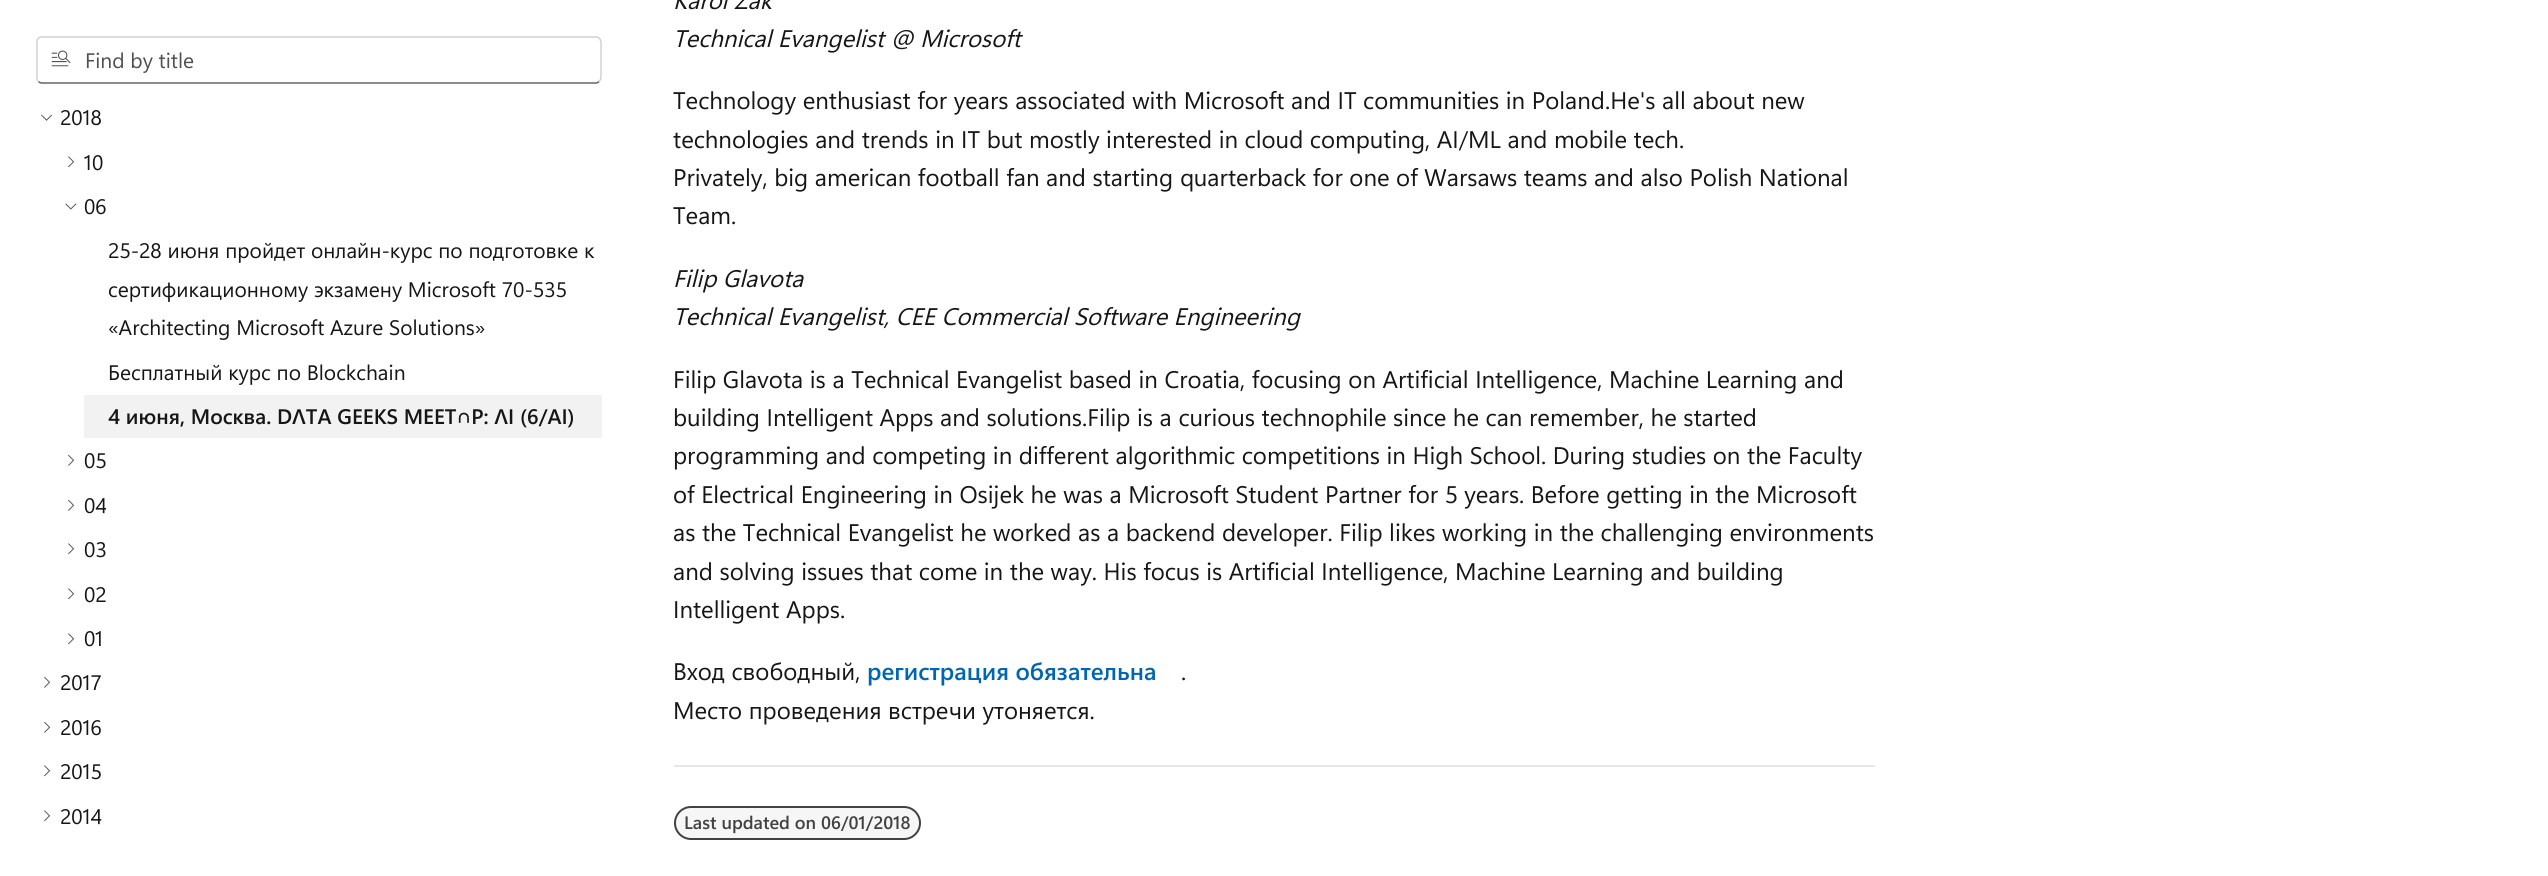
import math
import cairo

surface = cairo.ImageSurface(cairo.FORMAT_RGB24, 2548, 876)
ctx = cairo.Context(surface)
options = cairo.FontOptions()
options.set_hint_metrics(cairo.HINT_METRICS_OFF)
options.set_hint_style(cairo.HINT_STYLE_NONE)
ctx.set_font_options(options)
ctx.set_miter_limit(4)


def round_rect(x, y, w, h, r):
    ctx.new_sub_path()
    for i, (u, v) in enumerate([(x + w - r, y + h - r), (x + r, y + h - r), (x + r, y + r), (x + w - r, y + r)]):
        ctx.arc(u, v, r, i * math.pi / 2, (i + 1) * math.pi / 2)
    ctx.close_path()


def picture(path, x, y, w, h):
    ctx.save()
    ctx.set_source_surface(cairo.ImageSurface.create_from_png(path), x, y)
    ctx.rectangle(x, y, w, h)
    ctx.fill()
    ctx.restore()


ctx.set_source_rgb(1, 1, 1)
ctx.paint()
ctx.new_path()
ctx.move_to(599, 81.5)
ctx.curve_to(598, 82.5, 597, 83, 595.5, 83)
ctx.line_to(42, 83)
ctx.curve_to(40.5, 83, 39.5, 82.5, 38.5, 81.5)
ctx.set_source_rgb(0.38, 0.38, 0.38)
ctx.set_line_width(1.5)
ctx.stroke()
ctx.new_path()
ctx.move_to(38.5, 81.5)
ctx.curve_to(36, 79.5, 37, 75, 37, 72)
ctx.line_to(37, 48)
ctx.curve_to(37, 44, 35.5, 38.5, 40.5, 37)
ctx.line_to(597, 37)
ctx.curve_to(602, 38.5, 601, 44, 601, 48)
ctx.line_to(601, 72)
ctx.curve_to(601, 75, 601.5, 79.5, 599, 81.5)
ctx.set_source_rgb(0.82, 0.82, 0.82)
ctx.stroke()
picture("img1.png", 51, 50, 20, 17)
ctx.select_font_face("Segoe UI")
ctx.set_font_size(21)
ctx.set_source_rgb(0.314, 0.314, 0.314)
ctx.move_to(85, 68)
ctx.show_text("Find by title")
picture("img2.png", 41, 114, 11, 7)
ctx.set_source_rgb(0.086, 0.086, 0.086)
ctx.move_to(60, 125)
ctx.show_text("2018")
picture("img3.png", 68, 156, 7, 12)
ctx.move_to(84, 170)
ctx.show_text("10")
picture("img4.png", 65, 203, 12, 7)
ctx.move_to(84, 214)
ctx.show_text("06")
ctx.move_to(108, 258)
ctx.show_text("25-28 июня пройдет онлайн-курс по подготовке к")
ctx.move_to(108, 297)
ctx.show_text("сертификационному экзамену Microsoft 70-535")
ctx.move_to(108, 335)
ctx.show_text("«Architecting Microsoft Azure Solutions»")
ctx.move_to(108, 380)
ctx.show_text("Бесплатный курс по Blockchain")
ctx.set_source_rgb(0.949, 0.949, 0.949)
ctx.rectangle(84, 395, 518, 43)
ctx.fill()
ctx.select_font_face("Segoe UI SemiBold")
ctx.set_source_rgb(0.086, 0.086, 0.086)
ctx.move_to(108, 424)
ctx.show_text("4 июня, Москва. DΛTA GEEKS MEET∩P: ΛI (6/AI)")
picture("img5.png", 68, 454, 7, 12)
ctx.select_font_face("Segoe UI")
ctx.move_to(84, 468)
ctx.show_text("05")
picture("img5.png", 68, 499, 7, 12)
ctx.move_to(84, 513)
ctx.show_text("04")
picture("img3.png", 68, 543, 7, 12)
ctx.move_to(84, 557)
ctx.show_text("03")
picture("img3.png", 68, 588, 7, 12)
ctx.move_to(84, 602)
ctx.show_text("02")
picture("img3.png", 68, 633, 7, 12)
ctx.move_to(84, 646)
ctx.show_text("01")
picture("img5.png", 44, 676, 7, 12)
ctx.move_to(60, 690)
ctx.show_text("2017")
picture("img5.png", 44, 721, 7, 12)
ctx.move_to(60, 735)
ctx.show_text("2016")
picture("img3.png", 44, 765, 7, 12)
ctx.move_to(60, 779)
ctx.show_text("2015")
picture("img3.png", 44, 810, 7, 12)
ctx.move_to(60, 824)
ctx.show_text("2014")
ctx.select_font_face("Segoe UI", cairo.FONT_SLANT_ITALIC)
ctx.set_font_size(24)
ctx.move_to(673, 9)
ctx.show_text("Karol Żak")
ctx.move_to(673, 47)
ctx.show_text("Technical Evangelist @ Microsoft")
ctx.select_font_face("Segoe UI")
ctx.move_to(673, 109)
ctx.show_text("Technology enthusiast for years associated with Microsoft and IT communities in Poland.He's all about new")
ctx.move_to(673, 148)
ctx.show_text("technologies and trends in IT but mostly interested in cloud computing, AI/ML and mobile tech.")
ctx.move_to(673, 186)
ctx.show_text("Privately, big american football fan and starting quarterback for one of Warsaws teams and also Polish National")
ctx.move_to(673, 224)
ctx.show_text("Team.")
ctx.select_font_face("Segoe UI", cairo.FONT_SLANT_ITALIC)
ctx.move_to(673, 287)
ctx.show_text("Filip Glavota")
ctx.move_to(673, 325)
ctx.show_text("Technical Evangelist, CEE Commercial Software Engineering")
ctx.select_font_face("Segoe UI")
ctx.move_to(673, 388)
ctx.show_text("Filip Glavota is a Technical Evangelist based in Croatia, focusing on Artificial Intelligence, Machine Learning and")
ctx.move_to(673, 426)
ctx.show_text("building Intelligent Apps and solutions.Filip is a curious technophile since he can remember, he started")
ctx.move_to(673, 464)
ctx.show_text("programming and competing in different algorithmic competitions in High School. During studies on the Faculty")
ctx.move_to(673, 503)
ctx.show_text("of Electrical Engineering in Osijek he was a Microsoft Student Partner for 5 years. Before getting in the Microsoft")
ctx.move_to(673, 541)
ctx.show_text("as the Technical Evangelist he worked as a backend developer. Filip likes working in the challenging environments")
ctx.move_to(673, 580)
ctx.show_text("and solving issues that come in the way. His focus is Artificial Intelligence, Machine Learning and building")
ctx.move_to(673, 618)
ctx.show_text("Intelligent Apps.")
ctx.move_to(673, 680)
ctx.show_text("Вход свободный,")
ctx.select_font_face("Segoe UI SemiBold")
ctx.set_source_rgb(0, 0.396, 0.702)
ctx.move_to(867, 680)
ctx.show_text("регистрация обязательна")
ctx.select_font_face("Segoe UI")
ctx.set_source_rgb(0.086, 0.086, 0.086)
ctx.move_to(1181, 680)
ctx.show_text(".")
ctx.move_to(673, 719)
ctx.show_text("Место проведения встречи утоняется.")
ctx.set_source_rgb(0.902, 0.902, 0.902)
ctx.rectangle(674, 765, 1201, 2)
ctx.fill()
ctx.set_source_rgb(0.961, 0.961, 0.961)
round_rect(675, 807, 245, 32, 16)
ctx.fill_preserve()
ctx.set_source_rgb(0.259, 0.259, 0.259)
ctx.set_line_width(2)
ctx.stroke()
ctx.select_font_face("Segoe UI SemiBold")
ctx.set_font_size(18)
ctx.move_to(684, 829)
ctx.show_text("Last updated on 06/01/2018")
surface.write_to_png("page.png")
